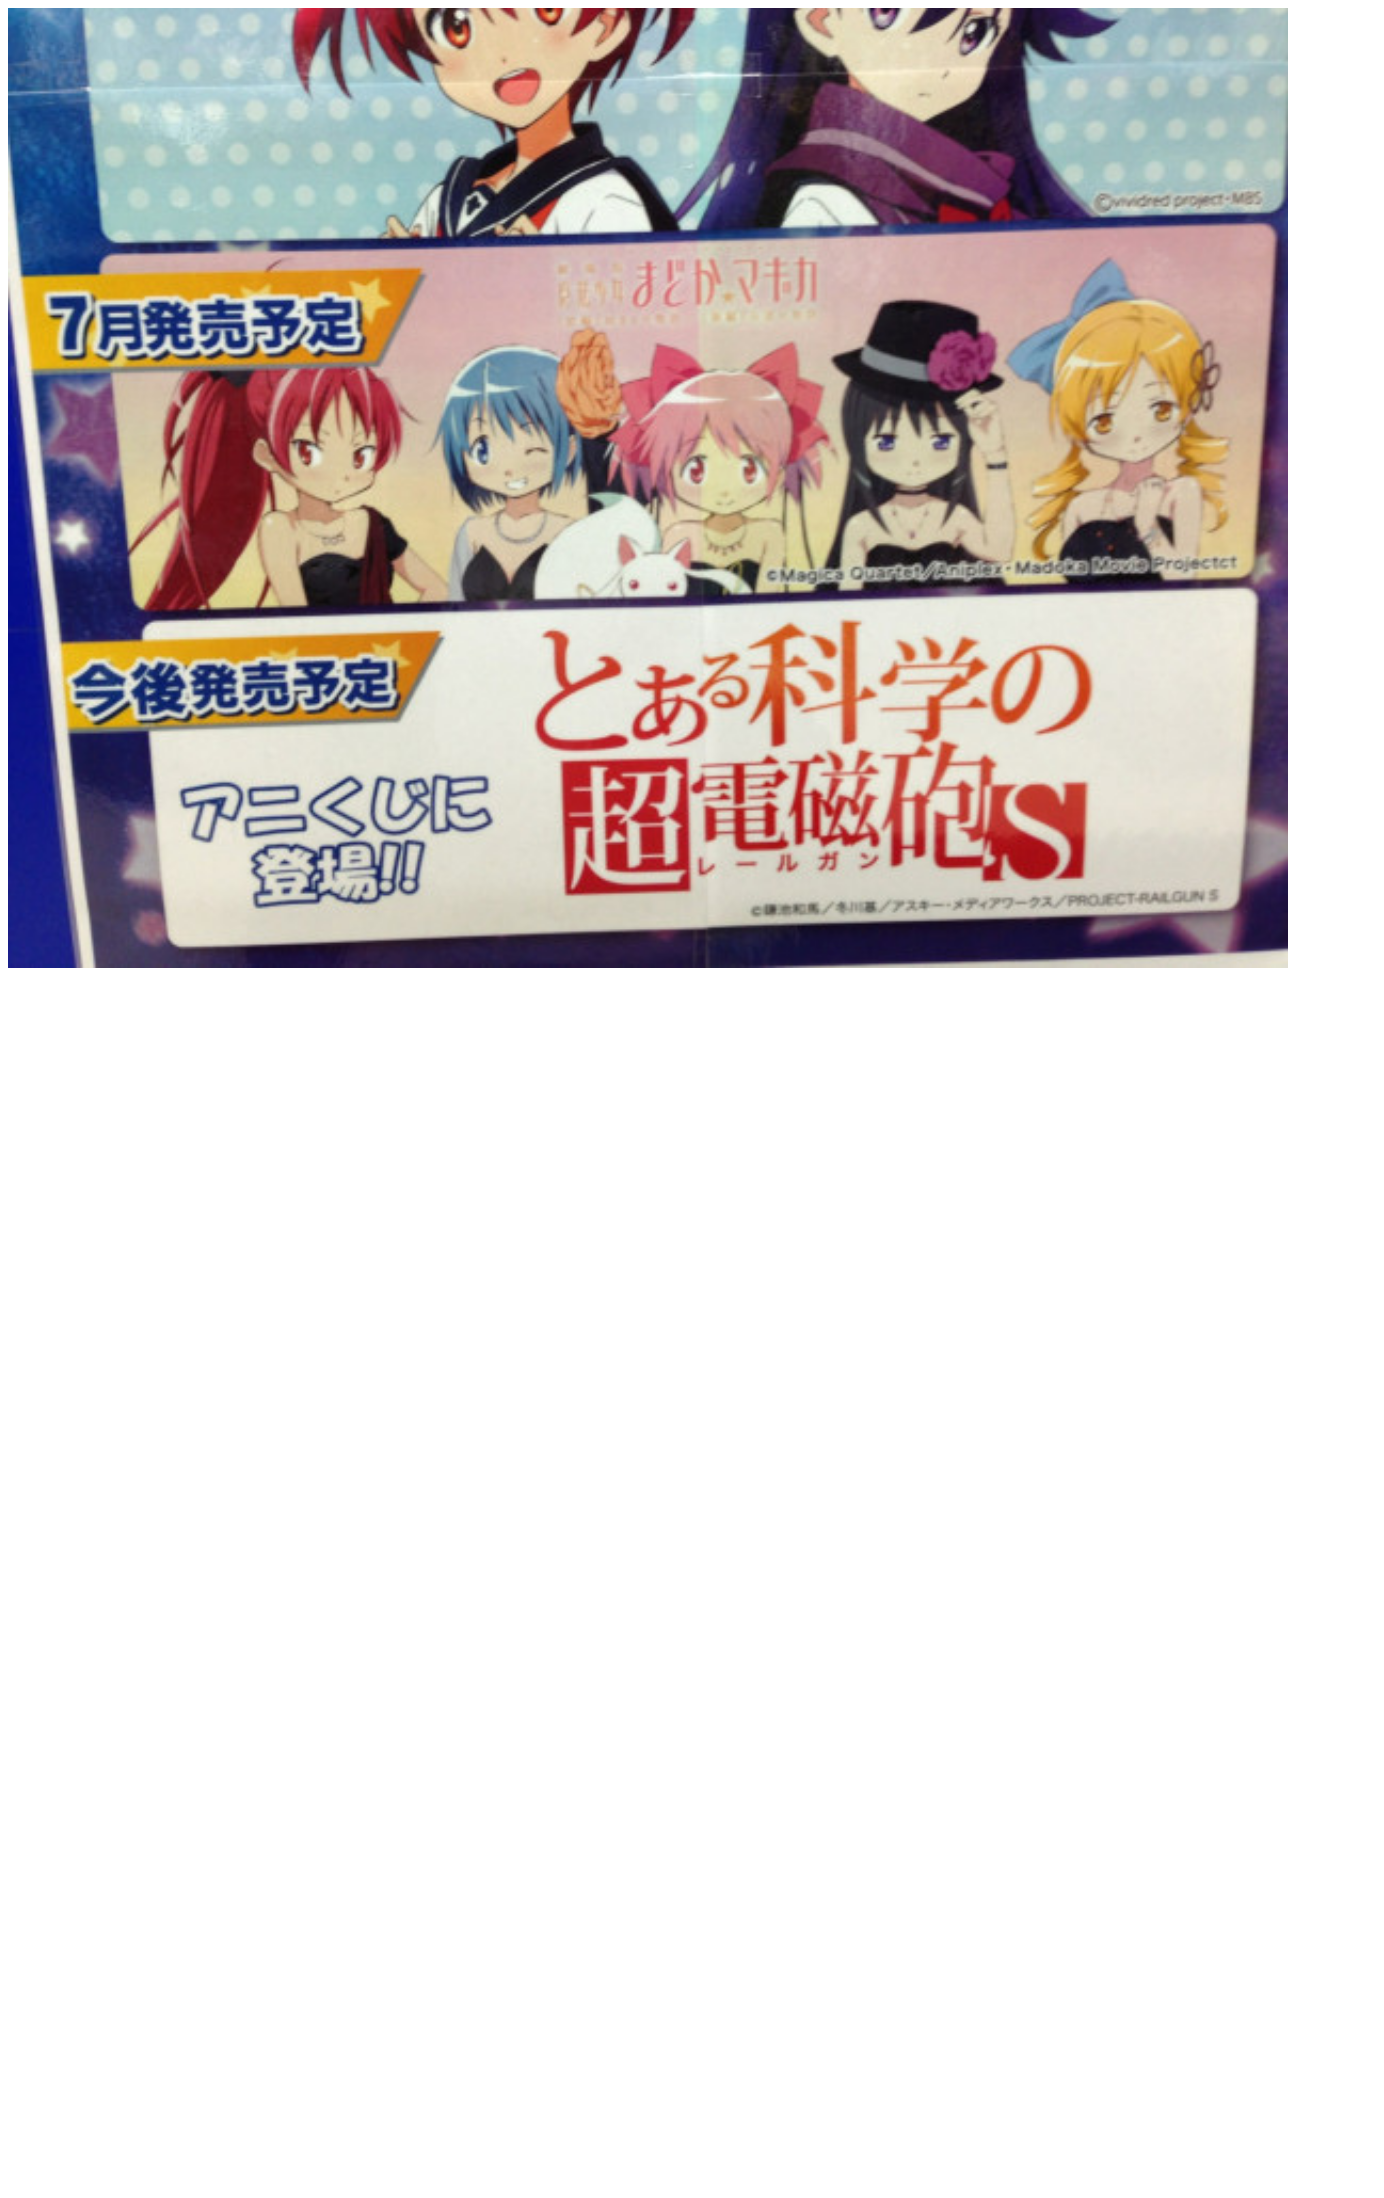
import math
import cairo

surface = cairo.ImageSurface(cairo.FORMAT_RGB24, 1384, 2198)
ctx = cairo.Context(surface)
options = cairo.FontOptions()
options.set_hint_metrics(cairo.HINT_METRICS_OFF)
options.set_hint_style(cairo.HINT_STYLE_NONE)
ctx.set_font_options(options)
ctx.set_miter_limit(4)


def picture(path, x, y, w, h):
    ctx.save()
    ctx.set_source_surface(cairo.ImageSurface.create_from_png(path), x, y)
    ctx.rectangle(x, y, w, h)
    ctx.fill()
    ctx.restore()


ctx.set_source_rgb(1, 1, 1)
ctx.paint()
picture("img1.png", 8, 8, 1280, 960)
surface.write_to_png("page.png")
